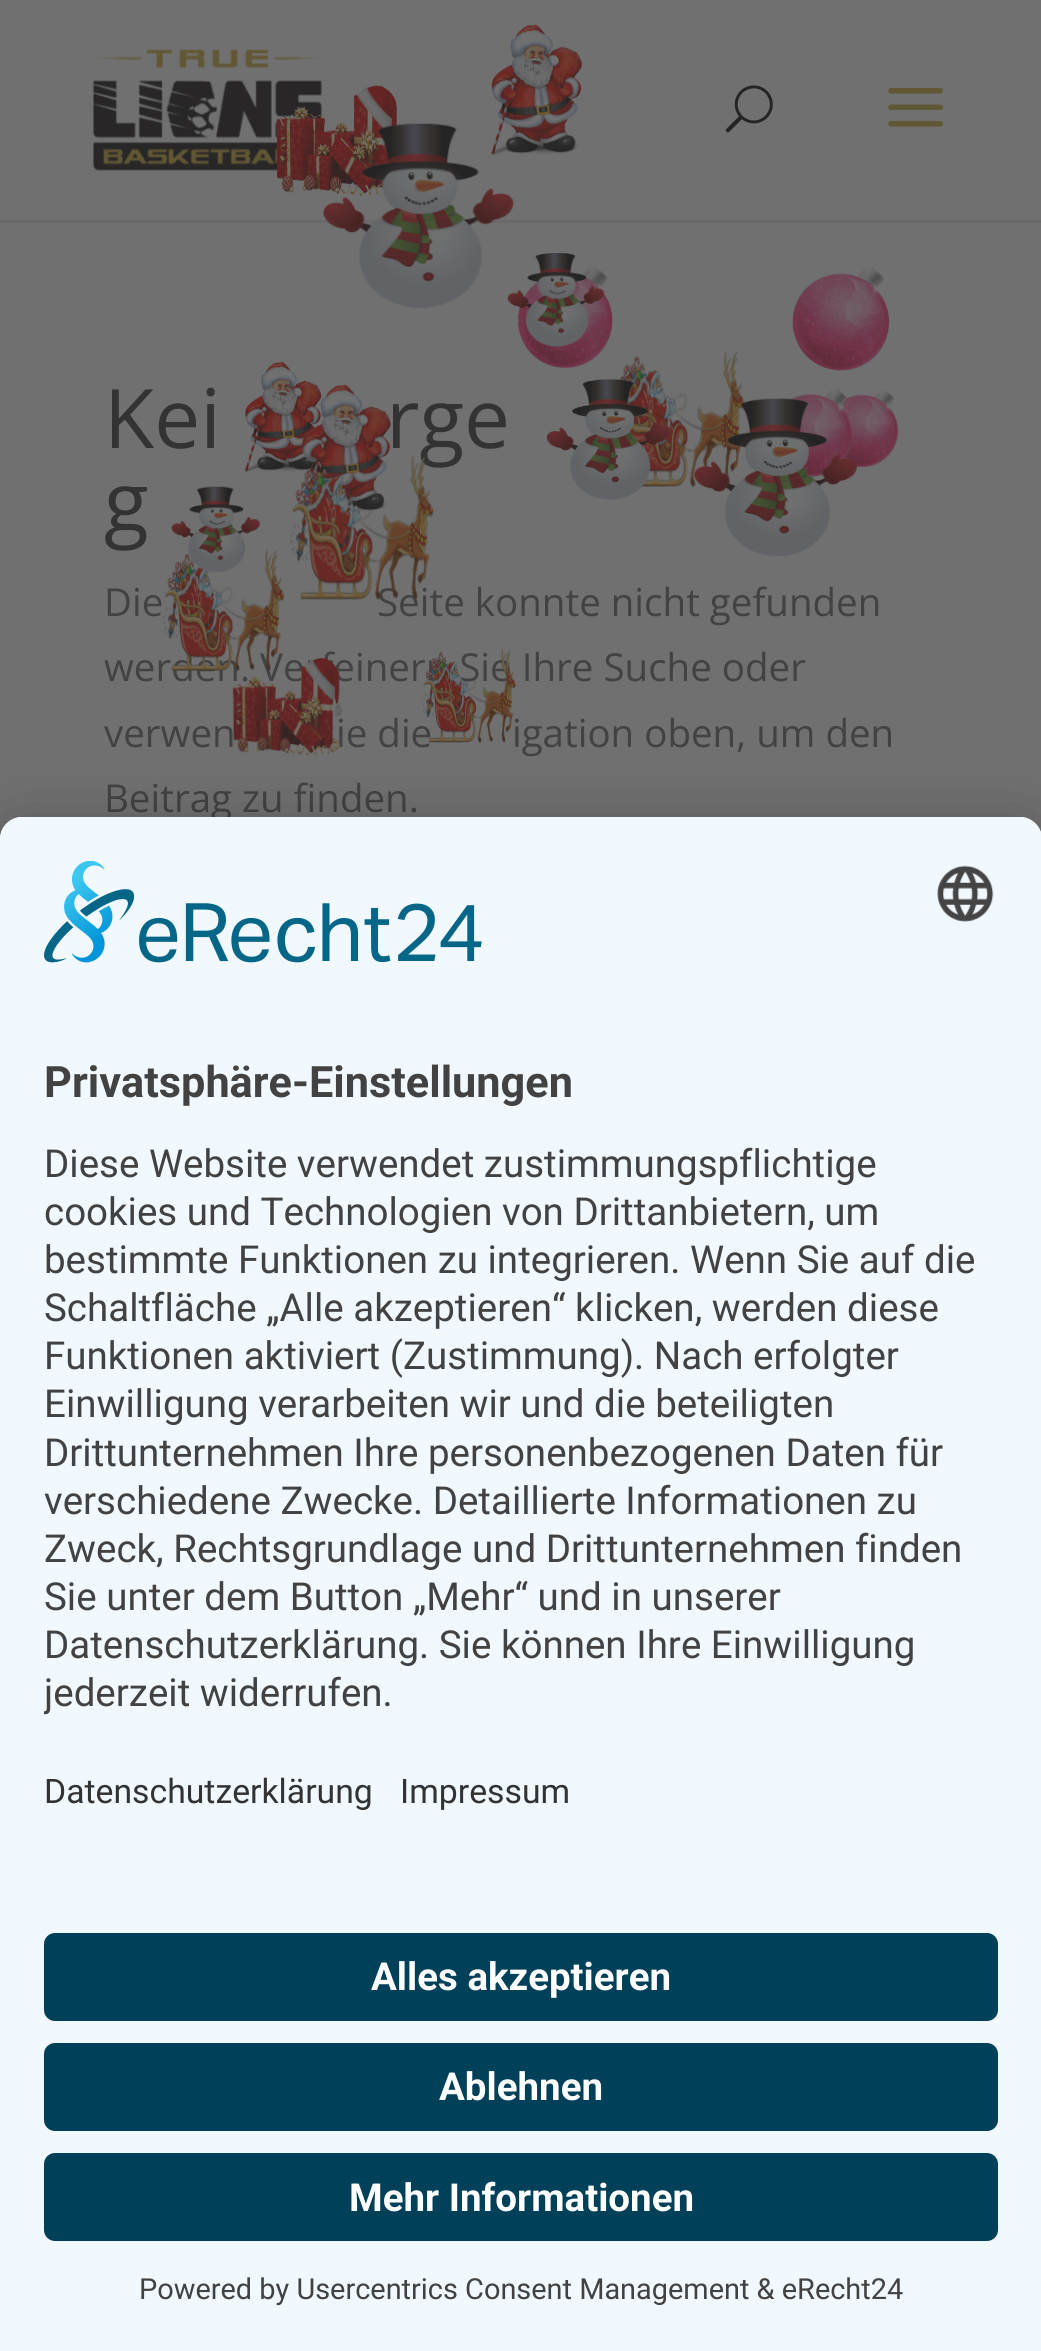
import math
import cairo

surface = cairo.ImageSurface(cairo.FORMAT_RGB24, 1041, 2351)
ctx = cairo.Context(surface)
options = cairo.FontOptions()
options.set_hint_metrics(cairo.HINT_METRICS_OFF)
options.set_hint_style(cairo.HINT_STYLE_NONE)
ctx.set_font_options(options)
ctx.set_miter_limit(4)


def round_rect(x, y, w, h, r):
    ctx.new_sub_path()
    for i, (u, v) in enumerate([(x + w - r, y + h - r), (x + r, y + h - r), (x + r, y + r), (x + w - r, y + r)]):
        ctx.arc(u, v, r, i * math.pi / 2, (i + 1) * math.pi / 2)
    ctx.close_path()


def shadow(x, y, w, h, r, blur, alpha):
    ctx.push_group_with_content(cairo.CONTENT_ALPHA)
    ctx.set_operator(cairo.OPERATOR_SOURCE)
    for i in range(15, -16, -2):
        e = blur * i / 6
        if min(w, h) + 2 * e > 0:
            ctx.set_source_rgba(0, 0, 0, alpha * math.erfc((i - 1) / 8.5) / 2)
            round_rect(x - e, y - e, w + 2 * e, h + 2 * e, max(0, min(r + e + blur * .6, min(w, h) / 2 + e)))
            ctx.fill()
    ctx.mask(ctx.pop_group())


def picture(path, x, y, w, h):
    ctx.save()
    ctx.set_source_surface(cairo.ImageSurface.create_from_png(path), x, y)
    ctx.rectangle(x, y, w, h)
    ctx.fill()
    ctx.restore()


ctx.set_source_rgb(0.439, 0.439, 0.439)
ctx.paint()
picture("img11.png", 92, 49, 230, 122)
picture("img1.png", 276, 85, 121, 112)
picture("img2.png", 490, 24, 93, 132)
picture("img5.png", 517, 267, 96, 102)
picture("img4.png", 507, 253, 98, 97)
ctx.set_source_rgb(0.412, 0.412, 0.412)
ctx.rectangle(0, 220, 1041, 3)
ctx.fill()
picture("img3.png", 323, 123, 191, 186)
picture("img6.png", 792, 267, 98, 104)
picture("img7.png", 244, 361, 78, 111)
picture("img8.png", 301, 384, 90, 129)
picture("img10.png", 615, 352, 130, 135)
picture("img9.png", 546, 379, 125, 121)
picture("img12.png", 725, 85, 48, 48)
picture("img13.png", 888, 88, 56, 39)
ctx.select_font_face("Open Sans")
ctx.set_font_size(82)
ctx.set_source_rgb(0.2, 0.2, 0.2)
ctx.move_to(104, 448)
ctx.show_text("Kei")
ctx.move_to(386, 448)
ctx.show_text("rge")
ctx.move_to(104, 531)
ctx.show_text("g")
ctx.set_font_size(38.5)
ctx.set_source_rgb(0.259, 0.259, 0.259)
ctx.move_to(104, 616)
ctx.show_text("Die")
ctx.move_to(377, 616)
ctx.show_text("Seite konnte nicht gefunden")
ctx.move_to(104, 681)
ctx.show_text("werden. Verfeinern Sie Ihre Suche oder")
ctx.move_to(104, 747)
ctx.show_text("verwen")
ctx.move_to(336, 747)
ctx.show_text("ie die")
ctx.move_to(512, 747)
ctx.show_text("igation oben, um den")
ctx.move_to(104, 812)
ctx.show_text("Beitrag zu finden.")
picture("img15.png", 832, 390, 67, 78)
picture("img14.png", 769, 389, 90, 89)
picture("img20.png", 232, 657, 111, 99)
picture("img19.png", 163, 550, 122, 121)
picture("img16.png", 171, 486, 89, 87)
picture("img17.png", 290, 456, 144, 144)
picture("img18.png", 694, 398, 163, 163)
picture("img21.png", 422, 649, 94, 94)
ctx.set_source_rgb(0, 0, 0)
shadow(0, 872, 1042, 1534, 22, 38.5, 0.3)
shadow(0, 831, 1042, 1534, 22, 36, 0.22)
ctx.set_source_rgb(0.945, 0.973, 1)
ctx.new_path()
ctx.move_to(22, 817)
ctx.line_to(1020, 817)
ctx.curve_to(1032, 817, 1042, 827, 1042, 839)
ctx.line_to(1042, 2351)
ctx.line_to(0, 2351)
ctx.line_to(0, 839)
ctx.curve_to(0, 827, 10, 817, 22, 817)
ctx.close_path()
ctx.fill()
ctx.new_path()
ctx.move_to(22, 817)
ctx.line_to(1020, 817)
ctx.curve_to(1032, 817, 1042, 827, 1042, 839)
ctx.line_to(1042, 1900)
ctx.line_to(0, 1900)
ctx.line_to(0, 839)
ctx.curve_to(0, 827, 10, 817, 22, 817)
ctx.close_path()
ctx.fill()
picture("img22.png", 44, 861, 438, 102)
picture("img23.png", 937, 865, 57, 57)
ctx.select_font_face("Roboto", cairo.FONT_SLANT_NORMAL, cairo.FONT_WEIGHT_BOLD)
ctx.set_font_size(43.25)
ctx.set_source_rgb(0.259, 0.259, 0.259)
ctx.move_to(44, 1097)
ctx.show_text("Privatsphäre-Einstellungen")
ctx.select_font_face("Roboto")
ctx.set_font_size(38.5)
ctx.move_to(44, 1177)
ctx.show_text("Diese Website verwendet zustimmungspflichtige")
ctx.move_to(44, 1225)
ctx.show_text("cookies und Technologien von Drittanbietern, um")
ctx.move_to(44, 1273)
ctx.show_text("bestimmte Funktionen zu integrieren. Wenn Sie auf die")
ctx.move_to(44, 1321)
ctx.show_text("Schaltfläche „Alle akzeptieren“ klicken, werden diese")
ctx.move_to(44, 1369)
ctx.show_text("Funktionen aktiviert (Zustimmung). Nach erfolgter")
ctx.move_to(44, 1417)
ctx.show_text("Einwilligung verarbeiten wir und die beteiligten")
ctx.move_to(44, 1466)
ctx.show_text("Drittunternehmen Ihre personenbezogenen Daten für")
ctx.move_to(44, 1514)
ctx.show_text("verschiedene Zwecke. Detaillierte Informationen zu")
ctx.move_to(44, 1562)
ctx.show_text("Zweck, Rechtsgrundlage und Drittunternehmen finden")
ctx.move_to(44, 1610)
ctx.show_text("Sie unter dem Button „Mehr“ und in unserer")
ctx.move_to(44, 1658)
ctx.show_text("Datenschutzerklärung. Sie können Ihre Einwilligung")
ctx.save()
ctx.rectangle(44, 1130, 954, 600)
ctx.clip()
ctx.move_to(44, 1706)
ctx.show_text("jederzeit widerrufen.")
ctx.restore()
ctx.set_font_size(33.75)
ctx.set_source_rgb(0.2, 0.2, 0.2)
ctx.move_to(44, 1803)
ctx.show_text("Datenschutzerklärung")
ctx.move_to(400, 1803)
ctx.show_text("Impressum")
ctx.set_source_rgb(0, 0.251, 0.349)
round_rect(44, 1933, 954, 88, 11)
ctx.fill()
ctx.select_font_face("Roboto", cairo.FONT_SLANT_NORMAL, cairo.FONT_WEIGHT_BOLD)
ctx.set_font_size(38.5)
ctx.set_source_rgb(1, 1, 1)
ctx.move_to(371, 1990)
ctx.show_text("Alles akzeptieren")
ctx.set_source_rgb(0, 0.251, 0.349)
round_rect(44, 2043, 954, 88, 11)
ctx.fill()
ctx.set_source_rgb(1, 1, 1)
ctx.move_to(439, 2100)
ctx.show_text("Ablehnen")
ctx.set_source_rgb(0, 0.251, 0.349)
round_rect(44, 2153, 954, 88, 11)
ctx.fill()
ctx.set_source_rgb(1, 1, 1)
ctx.move_to(349, 2211)
ctx.show_text("Mehr Informationen")
ctx.select_font_face("Roboto")
ctx.set_font_size(28.9)
ctx.set_source_rgb(0.259, 0.259, 0.259)
ctx.move_to(139, 2299)
ctx.show_text("Powered by Usercentrics Consent Management & eRecht24")
surface.write_to_png("page.png")
